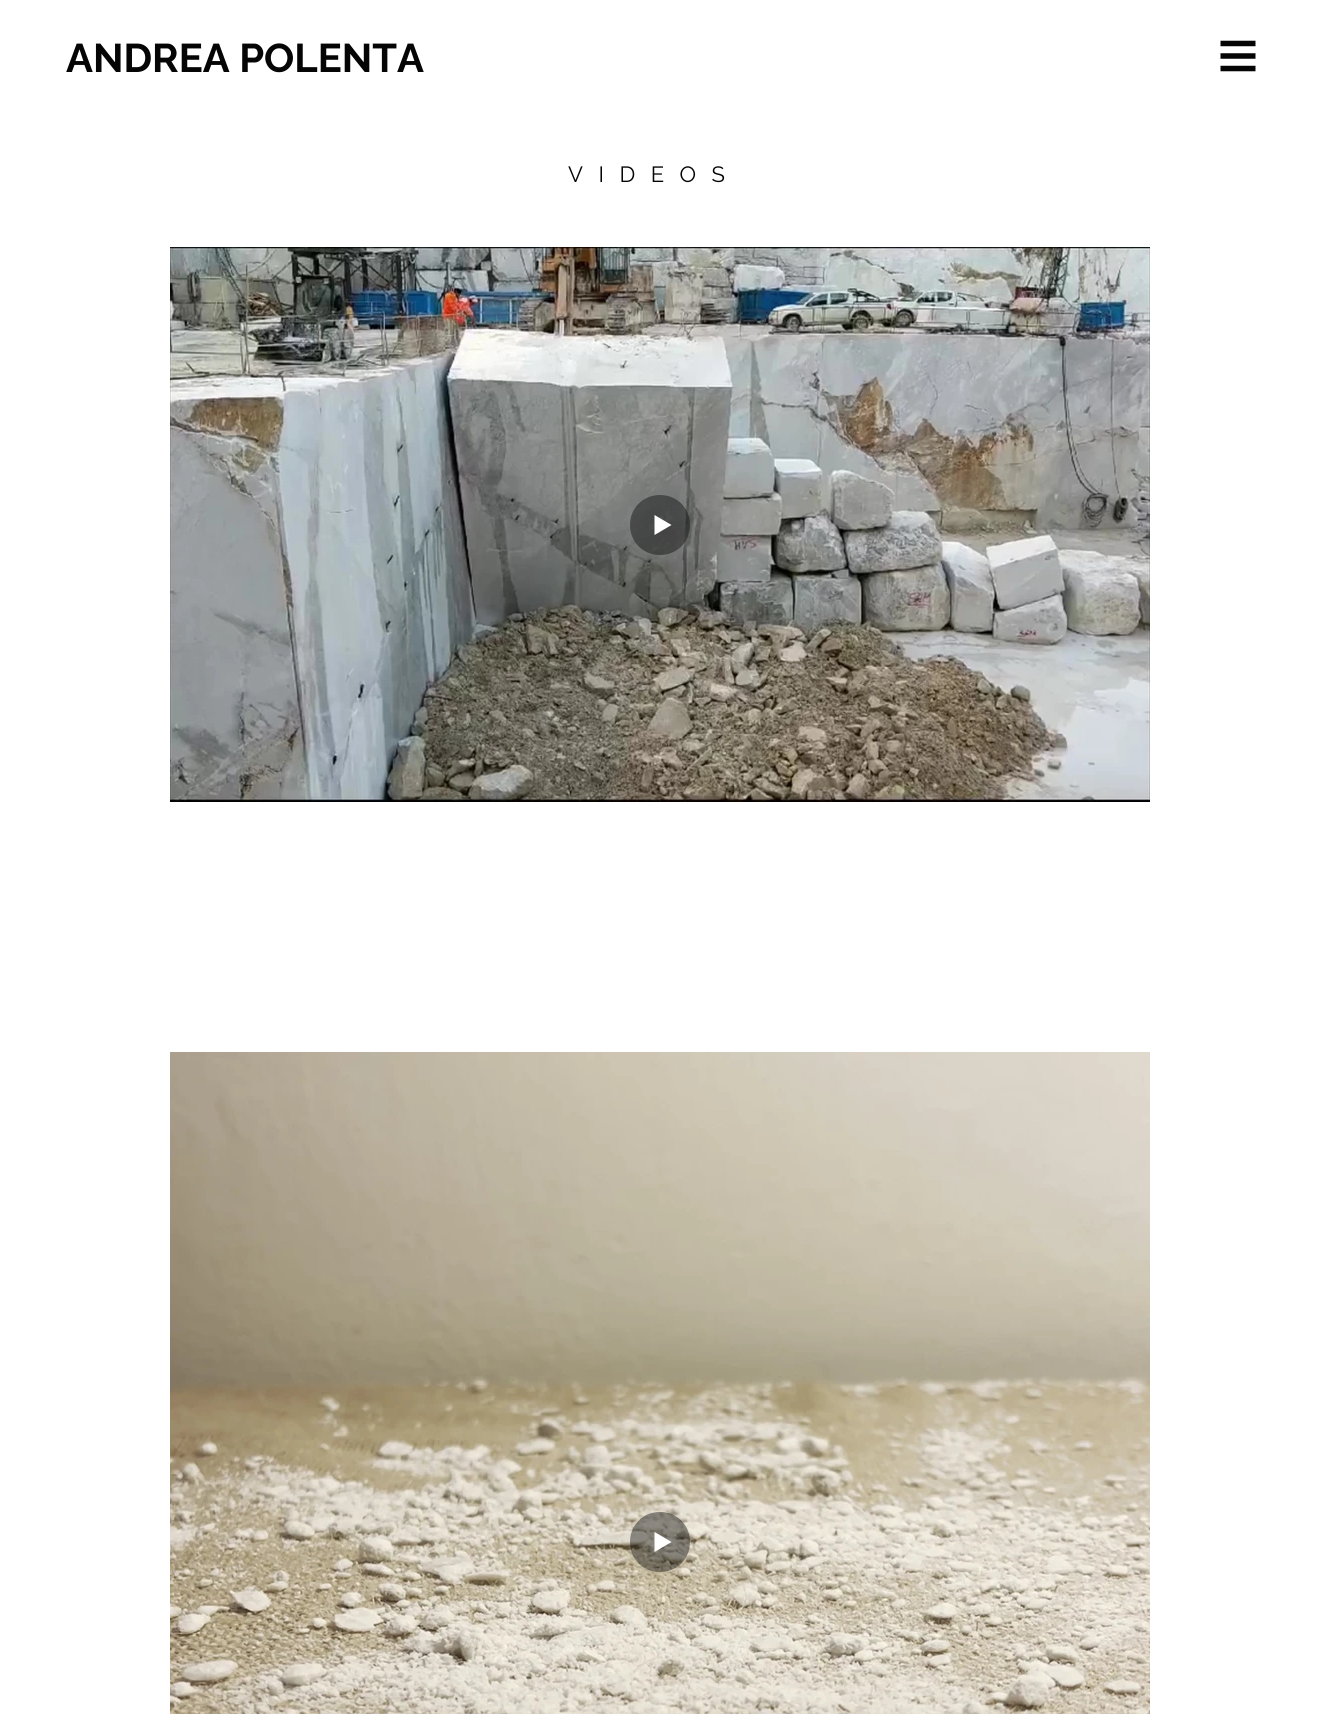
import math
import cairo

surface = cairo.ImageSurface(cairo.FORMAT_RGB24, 1319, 1714)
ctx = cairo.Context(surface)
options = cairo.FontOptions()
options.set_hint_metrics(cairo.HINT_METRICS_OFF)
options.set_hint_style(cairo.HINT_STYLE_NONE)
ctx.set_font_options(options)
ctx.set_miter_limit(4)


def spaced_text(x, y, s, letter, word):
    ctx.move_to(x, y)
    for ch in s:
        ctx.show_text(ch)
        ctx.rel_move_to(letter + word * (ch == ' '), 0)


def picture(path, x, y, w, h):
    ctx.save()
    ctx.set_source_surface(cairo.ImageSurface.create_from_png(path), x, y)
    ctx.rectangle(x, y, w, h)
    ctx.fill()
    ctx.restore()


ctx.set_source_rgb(1, 1, 1)
ctx.paint()
ctx.select_font_face("Raleway", cairo.FONT_SLANT_NORMAL, cairo.FONT_WEIGHT_BOLD)
ctx.set_font_size(40)
ctx.set_source_rgb(0.02, 0.02, 0.02)
ctx.move_to(66, 72)
ctx.show_text("ANDREA POLENTA")
picture("img1.png", 1220, 40, 36, 32)
ctx.select_font_face("Raleway")
ctx.set_font_size(22)
spaced_text(568, 182, "VIDEOS", 15.5, 0)
picture("img2.png", 170, 247, 980, 555)
ctx.set_source_rgba(0.02, 0.02, 0.02, 0.42)
ctx.set_fill_rule(cairo.FILL_RULE_EVEN_ODD)
ctx.new_path()
ctx.move_to(660, 495)
ctx.curve_to(677, 495, 690, 508, 690, 525)
ctx.curve_to(690, 542, 677, 555, 660, 555)
ctx.curve_to(643, 555, 630, 542, 630, 525)
ctx.curve_to(630, 508, 643, 495, 660, 495)
ctx.close_path()
ctx.fill()
ctx.set_source_rgb(1, 1, 1)
ctx.set_fill_rule(cairo.FILL_RULE_WINDING)
ctx.new_path()
ctx.move_to(671.5, 525)
ctx.line_to(654.5, 535)
ctx.line_to(654.5, 515)
ctx.close_path()
ctx.fill()
picture("img3.png", 170, 1052, 980, 662)
ctx.set_source_rgba(0.02, 0.02, 0.02, 0.42)
ctx.set_fill_rule(cairo.FILL_RULE_EVEN_ODD)
ctx.new_path()
ctx.move_to(660, 1512)
ctx.curve_to(677, 1512, 690, 1525, 690, 1542)
ctx.curve_to(690, 1559, 677, 1572, 660, 1572)
ctx.curve_to(643, 1572, 630, 1559, 630, 1542)
ctx.curve_to(630, 1525, 643, 1512, 660, 1512)
ctx.close_path()
ctx.fill()
ctx.set_source_rgb(1, 1, 1)
ctx.set_fill_rule(cairo.FILL_RULE_WINDING)
ctx.new_path()
ctx.move_to(671.5, 1542)
ctx.line_to(654.5, 1552)
ctx.line_to(654.5, 1532)
ctx.close_path()
ctx.fill()
surface.write_to_png("page.png")
